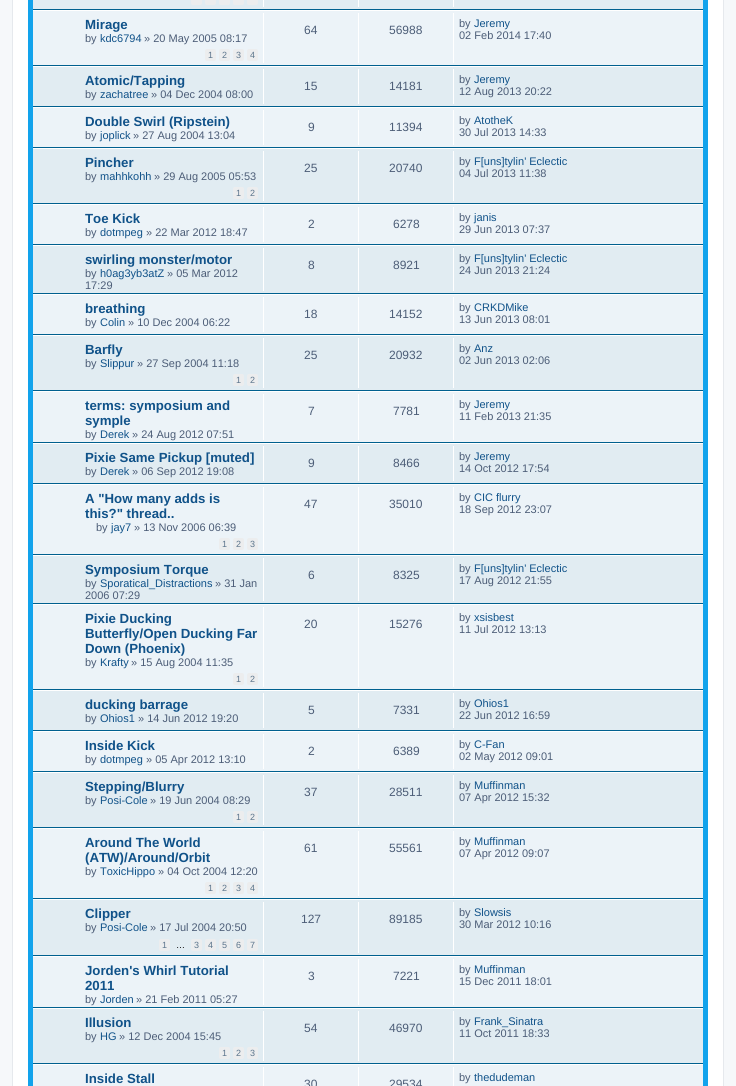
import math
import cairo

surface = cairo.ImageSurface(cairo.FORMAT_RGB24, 736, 1086)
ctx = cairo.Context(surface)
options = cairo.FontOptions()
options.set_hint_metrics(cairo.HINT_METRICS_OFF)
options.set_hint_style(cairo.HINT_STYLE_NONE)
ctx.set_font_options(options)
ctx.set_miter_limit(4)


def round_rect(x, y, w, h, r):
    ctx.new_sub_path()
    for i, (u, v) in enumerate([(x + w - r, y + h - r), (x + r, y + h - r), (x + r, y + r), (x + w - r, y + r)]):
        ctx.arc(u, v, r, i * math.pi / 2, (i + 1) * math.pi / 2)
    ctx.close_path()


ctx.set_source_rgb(0.961, 0.969, 0.98)
ctx.paint()
ctx.set_source_rgb(1, 1, 1)
ctx.rectangle(12.5, -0.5, 711, 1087)
ctx.fill_preserve()
ctx.set_source_rgb(0.902, 0.914, 0.929)
ctx.set_line_width(1)
ctx.stroke()
ctx.set_source_rgb(0.071, 0.639, 0.922)
ctx.rectangle(28, 0, 680, 1086)
ctx.fill()
ctx.set_source_rgb(0.882, 0.922, 0.949)
ctx.rectangle(33, 0, 670, 9)
ctx.fill()
ctx.set_source_rgb(0, 0.376, 0.561)
ctx.rectangle(33, 9, 670, 1)
ctx.fill()
ctx.set_source_rgb(0.925, 0.929, 0.933)
round_rect(191, -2, 11, 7, 2)
ctx.fill()
round_rect(205, -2, 11, 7, 2)
ctx.fill()
round_rect(219, -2, 11, 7, 2)
ctx.fill()
round_rect(233, -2, 11, 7, 2)
ctx.fill()
round_rect(247, -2, 11, 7, 2)
ctx.fill()
ctx.set_source_rgb(1, 1, 1)
ctx.rectangle(263, 0, 1, 7)
ctx.fill()
ctx.rectangle(358, 0, 1, 7)
ctx.fill()
ctx.rectangle(453, 0, 1, 7)
ctx.fill()
ctx.set_source_rgb(0.925, 0.953, 0.969)
ctx.rectangle(33, 11, 670, 54)
ctx.fill()
ctx.set_source_rgb(1, 1, 1)
ctx.rectangle(33, 10, 670, 1)
ctx.fill()
ctx.set_source_rgb(0, 0.376, 0.561)
ctx.rectangle(33, 65, 670, 1)
ctx.fill()
ctx.select_font_face("Liberation Sans", cairo.FONT_SLANT_NORMAL, cairo.FONT_WEIGHT_BOLD)
ctx.set_font_size(13.25)
ctx.set_source_rgb(0.063, 0.322, 0.537)
ctx.move_to(85, 29)
ctx.show_text("Mirage")
ctx.select_font_face("Liberation Sans")
ctx.set_font_size(11)
ctx.set_source_rgb(0.298, 0.365, 0.467)
ctx.move_to(85, 42)
ctx.show_text("by")
ctx.set_source_rgb(0.063, 0.322, 0.537)
ctx.move_to(100, 42)
ctx.show_text("kdc6794")
ctx.set_source_rgb(0.298, 0.365, 0.467)
ctx.move_to(144, 42)
ctx.show_text("» 20 May 2005 08:17")
ctx.set_source_rgb(0.925, 0.929, 0.933)
round_rect(205, 49, 11, 12, 2)
ctx.fill()
ctx.set_font_size(9)
ctx.set_source_rgb(0.361, 0.459, 0.549)
ctx.move_to(208, 58)
ctx.show_text("1")
ctx.set_source_rgb(0.925, 0.929, 0.933)
round_rect(219, 49, 11, 12, 2)
ctx.fill()
ctx.set_source_rgb(0.361, 0.459, 0.549)
ctx.move_to(222, 58)
ctx.show_text("2")
ctx.set_source_rgb(0.925, 0.929, 0.933)
round_rect(233, 49, 11, 12, 2)
ctx.fill()
ctx.set_source_rgb(0.361, 0.459, 0.549)
ctx.move_to(236, 58)
ctx.show_text("3")
ctx.set_source_rgb(0.925, 0.929, 0.933)
round_rect(247, 49, 11, 12, 2)
ctx.fill()
ctx.set_source_rgb(0.361, 0.459, 0.549)
ctx.move_to(250, 58)
ctx.show_text("4")
ctx.set_source_rgb(1, 1, 1)
ctx.rectangle(263, 13, 1, 50)
ctx.fill()
ctx.set_font_size(12)
ctx.set_source_rgb(0.298, 0.365, 0.467)
ctx.move_to(304, 34)
ctx.show_text("64")
ctx.set_source_rgb(1, 1, 1)
ctx.rectangle(358, 13, 1, 50)
ctx.fill()
ctx.set_source_rgb(0.298, 0.365, 0.467)
ctx.move_to(389, 34)
ctx.show_text("56988")
ctx.set_source_rgb(1, 1, 1)
ctx.rectangle(453, 13, 1, 50)
ctx.fill()
ctx.set_font_size(11)
ctx.set_source_rgb(0.298, 0.365, 0.467)
ctx.move_to(459, 27)
ctx.show_text("by")
ctx.set_source_rgb(0.063, 0.322, 0.537)
ctx.move_to(474, 27)
ctx.show_text("Jeremy")
ctx.set_source_rgb(0.298, 0.365, 0.467)
ctx.move_to(459, 39)
ctx.show_text("02 Feb 2014 17:40")
ctx.set_source_rgb(0.882, 0.922, 0.949)
ctx.rectangle(33, 67, 670, 39)
ctx.fill()
ctx.set_source_rgb(1, 1, 1)
ctx.rectangle(33, 66, 670, 1)
ctx.fill()
ctx.set_source_rgb(0, 0.376, 0.561)
ctx.rectangle(33, 106, 670, 1)
ctx.fill()
ctx.select_font_face("Liberation Sans", cairo.FONT_SLANT_NORMAL, cairo.FONT_WEIGHT_BOLD)
ctx.set_font_size(13.25)
ctx.set_source_rgb(0.063, 0.322, 0.537)
ctx.move_to(85, 85)
ctx.show_text("Atomic/Tapping")
ctx.select_font_face("Liberation Sans")
ctx.set_font_size(11)
ctx.set_source_rgb(0.298, 0.365, 0.467)
ctx.move_to(85, 98)
ctx.show_text("by")
ctx.set_source_rgb(0.063, 0.322, 0.537)
ctx.move_to(100, 98)
ctx.show_text("zachatree")
ctx.set_source_rgb(0.298, 0.365, 0.467)
ctx.move_to(151, 98)
ctx.show_text("» 04 Dec 2004 08:00")
ctx.set_source_rgb(1, 1, 1)
ctx.rectangle(263, 69, 1, 35)
ctx.fill()
ctx.set_font_size(12)
ctx.set_source_rgb(0.298, 0.365, 0.467)
ctx.move_to(304, 90)
ctx.show_text("15")
ctx.set_source_rgb(1, 1, 1)
ctx.rectangle(358, 69, 1, 35)
ctx.fill()
ctx.set_source_rgb(0.298, 0.365, 0.467)
ctx.move_to(389, 90)
ctx.show_text("14181")
ctx.set_source_rgb(1, 1, 1)
ctx.rectangle(453, 69, 1, 35)
ctx.fill()
ctx.set_font_size(11)
ctx.set_source_rgb(0.298, 0.365, 0.467)
ctx.move_to(459, 83)
ctx.show_text("by")
ctx.set_source_rgb(0.063, 0.322, 0.537)
ctx.move_to(474, 83)
ctx.show_text("Jeremy")
ctx.set_source_rgb(0.298, 0.365, 0.467)
ctx.move_to(459, 95)
ctx.show_text("12 Aug 2013 20:22")
ctx.set_source_rgb(0.925, 0.953, 0.969)
ctx.rectangle(33, 108, 670, 39)
ctx.fill()
ctx.set_source_rgb(1, 1, 1)
ctx.rectangle(33, 107, 670, 1)
ctx.fill()
ctx.set_source_rgb(0, 0.376, 0.561)
ctx.rectangle(33, 147, 670, 1)
ctx.fill()
ctx.select_font_face("Liberation Sans", cairo.FONT_SLANT_NORMAL, cairo.FONT_WEIGHT_BOLD)
ctx.set_font_size(13.25)
ctx.set_source_rgb(0.063, 0.322, 0.537)
ctx.move_to(85, 126)
ctx.show_text("Double Swirl (Ripstein)")
ctx.select_font_face("Liberation Sans")
ctx.set_font_size(11)
ctx.set_source_rgb(0.298, 0.365, 0.467)
ctx.move_to(85, 139)
ctx.show_text("by")
ctx.set_source_rgb(0.063, 0.322, 0.537)
ctx.move_to(100, 139)
ctx.show_text("joplick")
ctx.set_source_rgb(0.298, 0.365, 0.467)
ctx.move_to(133, 139)
ctx.show_text("» 27 Aug 2004 13:04")
ctx.set_source_rgb(1, 1, 1)
ctx.rectangle(263, 110, 1, 35)
ctx.fill()
ctx.set_font_size(12)
ctx.set_source_rgb(0.298, 0.365, 0.467)
ctx.move_to(308, 131)
ctx.show_text("9")
ctx.set_source_rgb(1, 1, 1)
ctx.rectangle(358, 110, 1, 35)
ctx.fill()
ctx.set_source_rgb(0.298, 0.365, 0.467)
ctx.move_to(389, 131)
ctx.show_text("11394")
ctx.set_source_rgb(1, 1, 1)
ctx.rectangle(453, 110, 1, 35)
ctx.fill()
ctx.set_font_size(11)
ctx.set_source_rgb(0.298, 0.365, 0.467)
ctx.move_to(459, 124)
ctx.show_text("by")
ctx.set_source_rgb(0.063, 0.322, 0.537)
ctx.move_to(474, 124)
ctx.show_text("AtotheK")
ctx.set_source_rgb(0.298, 0.365, 0.467)
ctx.move_to(459, 136)
ctx.show_text("30 Jul 2013 14:33")
ctx.set_source_rgb(0.882, 0.922, 0.949)
ctx.rectangle(33, 149, 670, 54)
ctx.fill()
ctx.set_source_rgb(1, 1, 1)
ctx.rectangle(33, 148, 670, 1)
ctx.fill()
ctx.set_source_rgb(0, 0.376, 0.561)
ctx.rectangle(33, 203, 670, 1)
ctx.fill()
ctx.select_font_face("Liberation Sans", cairo.FONT_SLANT_NORMAL, cairo.FONT_WEIGHT_BOLD)
ctx.set_font_size(13.25)
ctx.set_source_rgb(0.063, 0.322, 0.537)
ctx.move_to(85, 167)
ctx.show_text("Pincher")
ctx.select_font_face("Liberation Sans")
ctx.set_font_size(11)
ctx.set_source_rgb(0.298, 0.365, 0.467)
ctx.move_to(85, 180)
ctx.show_text("by")
ctx.set_source_rgb(0.063, 0.322, 0.537)
ctx.move_to(100, 180)
ctx.show_text("mahhkohh")
ctx.set_source_rgb(0.298, 0.365, 0.467)
ctx.move_to(154, 180)
ctx.show_text("» 29 Aug 2005 05:53")
ctx.set_source_rgb(0.925, 0.929, 0.933)
round_rect(233, 187, 11, 12, 2)
ctx.fill()
ctx.set_font_size(9)
ctx.set_source_rgb(0.361, 0.459, 0.549)
ctx.move_to(236, 196)
ctx.show_text("1")
ctx.set_source_rgb(0.925, 0.929, 0.933)
round_rect(247, 187, 11, 12, 2)
ctx.fill()
ctx.set_source_rgb(0.361, 0.459, 0.549)
ctx.move_to(250, 196)
ctx.show_text("2")
ctx.set_source_rgb(1, 1, 1)
ctx.rectangle(263, 151, 1, 50)
ctx.fill()
ctx.set_font_size(12)
ctx.set_source_rgb(0.298, 0.365, 0.467)
ctx.move_to(304, 172)
ctx.show_text("25")
ctx.set_source_rgb(1, 1, 1)
ctx.rectangle(358, 151, 1, 50)
ctx.fill()
ctx.set_source_rgb(0.298, 0.365, 0.467)
ctx.move_to(389, 172)
ctx.show_text("20740")
ctx.set_source_rgb(1, 1, 1)
ctx.rectangle(453, 151, 1, 50)
ctx.fill()
ctx.set_font_size(11)
ctx.set_source_rgb(0.298, 0.365, 0.467)
ctx.move_to(459, 165)
ctx.show_text("by")
ctx.set_source_rgb(0.063, 0.322, 0.537)
ctx.move_to(474, 165)
ctx.show_text("F[uns]tylin' Eclectic")
ctx.set_source_rgb(0.298, 0.365, 0.467)
ctx.move_to(459, 177)
ctx.show_text("04 Jul 2013 11:38")
ctx.set_source_rgb(0.925, 0.953, 0.969)
ctx.rectangle(33, 205, 670, 39)
ctx.fill()
ctx.set_source_rgb(1, 1, 1)
ctx.rectangle(33, 204, 670, 1)
ctx.fill()
ctx.set_source_rgb(0, 0.376, 0.561)
ctx.rectangle(33, 244, 670, 1)
ctx.fill()
ctx.select_font_face("Liberation Sans", cairo.FONT_SLANT_NORMAL, cairo.FONT_WEIGHT_BOLD)
ctx.set_font_size(13.25)
ctx.set_source_rgb(0.063, 0.322, 0.537)
ctx.move_to(85, 223)
ctx.show_text("Toe Kick")
ctx.select_font_face("Liberation Sans")
ctx.set_font_size(11)
ctx.set_source_rgb(0.298, 0.365, 0.467)
ctx.move_to(85, 236)
ctx.show_text("by")
ctx.set_source_rgb(0.063, 0.322, 0.537)
ctx.move_to(100, 236)
ctx.show_text("dotmpeg")
ctx.set_source_rgb(0.298, 0.365, 0.467)
ctx.move_to(146, 236)
ctx.show_text("» 22 Mar 2012 18:47")
ctx.set_source_rgb(1, 1, 1)
ctx.rectangle(263, 207, 1, 35)
ctx.fill()
ctx.set_font_size(12)
ctx.set_source_rgb(0.298, 0.365, 0.467)
ctx.move_to(308, 228)
ctx.show_text("2")
ctx.set_source_rgb(1, 1, 1)
ctx.rectangle(358, 207, 1, 35)
ctx.fill()
ctx.set_source_rgb(0.298, 0.365, 0.467)
ctx.move_to(393, 228)
ctx.show_text("6278")
ctx.set_source_rgb(1, 1, 1)
ctx.rectangle(453, 207, 1, 35)
ctx.fill()
ctx.set_font_size(11)
ctx.set_source_rgb(0.298, 0.365, 0.467)
ctx.move_to(459, 221)
ctx.show_text("by")
ctx.set_source_rgb(0.063, 0.322, 0.537)
ctx.move_to(474, 221)
ctx.show_text("janis")
ctx.set_source_rgb(0.298, 0.365, 0.467)
ctx.move_to(459, 233)
ctx.show_text("29 Jun 2013 07:37")
ctx.set_source_rgb(0.882, 0.922, 0.949)
ctx.rectangle(33, 246, 670, 47)
ctx.fill()
ctx.set_source_rgb(1, 1, 1)
ctx.rectangle(33, 245, 670, 1)
ctx.fill()
ctx.set_source_rgb(0, 0.376, 0.561)
ctx.rectangle(33, 293, 670, 1)
ctx.fill()
ctx.select_font_face("Liberation Sans", cairo.FONT_SLANT_NORMAL, cairo.FONT_WEIGHT_BOLD)
ctx.set_font_size(13.25)
ctx.set_source_rgb(0.063, 0.322, 0.537)
ctx.move_to(85, 264)
ctx.show_text("swirling monster/motor")
ctx.select_font_face("Liberation Sans")
ctx.set_font_size(11)
ctx.set_source_rgb(0.298, 0.365, 0.467)
ctx.move_to(85, 277)
ctx.show_text("by")
ctx.set_source_rgb(0.063, 0.322, 0.537)
ctx.move_to(100, 277)
ctx.show_text("h0ag3yb3atZ")
ctx.set_source_rgb(0.298, 0.365, 0.467)
ctx.move_to(167, 277)
ctx.show_text("» 05 Mar 2012")
ctx.move_to(85, 289)
ctx.show_text("17:29")
ctx.set_source_rgb(1, 1, 1)
ctx.rectangle(263, 248, 1, 43)
ctx.fill()
ctx.set_font_size(12)
ctx.set_source_rgb(0.298, 0.365, 0.467)
ctx.move_to(308, 269)
ctx.show_text("8")
ctx.set_source_rgb(1, 1, 1)
ctx.rectangle(358, 248, 1, 43)
ctx.fill()
ctx.set_source_rgb(0.298, 0.365, 0.467)
ctx.move_to(393, 269)
ctx.show_text("8921")
ctx.set_source_rgb(1, 1, 1)
ctx.rectangle(453, 248, 1, 43)
ctx.fill()
ctx.set_font_size(11)
ctx.set_source_rgb(0.298, 0.365, 0.467)
ctx.move_to(459, 262)
ctx.show_text("by")
ctx.set_source_rgb(0.063, 0.322, 0.537)
ctx.move_to(474, 262)
ctx.show_text("F[uns]tylin' Eclectic")
ctx.set_source_rgb(0.298, 0.365, 0.467)
ctx.move_to(459, 274)
ctx.show_text("24 Jun 2013 21:24")
ctx.set_source_rgb(0.925, 0.953, 0.969)
ctx.rectangle(33, 295, 670, 39)
ctx.fill()
ctx.set_source_rgb(1, 1, 1)
ctx.rectangle(33, 294, 670, 1)
ctx.fill()
ctx.set_source_rgb(0, 0.376, 0.561)
ctx.rectangle(33, 334, 670, 1)
ctx.fill()
ctx.select_font_face("Liberation Sans", cairo.FONT_SLANT_NORMAL, cairo.FONT_WEIGHT_BOLD)
ctx.set_font_size(13.25)
ctx.set_source_rgb(0.063, 0.322, 0.537)
ctx.move_to(85, 313)
ctx.show_text("breathing")
ctx.select_font_face("Liberation Sans")
ctx.set_font_size(11)
ctx.set_source_rgb(0.298, 0.365, 0.467)
ctx.move_to(85, 326)
ctx.show_text("by")
ctx.set_source_rgb(0.063, 0.322, 0.537)
ctx.move_to(100, 326)
ctx.show_text("Colin")
ctx.set_source_rgb(0.298, 0.365, 0.467)
ctx.move_to(128, 326)
ctx.show_text("» 10 Dec 2004 06:22")
ctx.set_source_rgb(1, 1, 1)
ctx.rectangle(263, 297, 1, 35)
ctx.fill()
ctx.set_font_size(12)
ctx.set_source_rgb(0.298, 0.365, 0.467)
ctx.move_to(304, 318)
ctx.show_text("18")
ctx.set_source_rgb(1, 1, 1)
ctx.rectangle(358, 297, 1, 35)
ctx.fill()
ctx.set_source_rgb(0.298, 0.365, 0.467)
ctx.move_to(389, 318)
ctx.show_text("14152")
ctx.set_source_rgb(1, 1, 1)
ctx.rectangle(453, 297, 1, 35)
ctx.fill()
ctx.set_font_size(11)
ctx.set_source_rgb(0.298, 0.365, 0.467)
ctx.move_to(459, 311)
ctx.show_text("by")
ctx.set_source_rgb(0.063, 0.322, 0.537)
ctx.move_to(474, 311)
ctx.show_text("CRKDMike")
ctx.set_source_rgb(0.298, 0.365, 0.467)
ctx.move_to(459, 323)
ctx.show_text("13 Jun 2013 08:01")
ctx.set_source_rgb(0.882, 0.922, 0.949)
ctx.rectangle(33, 336, 670, 54)
ctx.fill()
ctx.set_source_rgb(1, 1, 1)
ctx.rectangle(33, 335, 670, 1)
ctx.fill()
ctx.set_source_rgb(0, 0.376, 0.561)
ctx.rectangle(33, 390, 670, 1)
ctx.fill()
ctx.select_font_face("Liberation Sans", cairo.FONT_SLANT_NORMAL, cairo.FONT_WEIGHT_BOLD)
ctx.set_font_size(13.25)
ctx.set_source_rgb(0.063, 0.322, 0.537)
ctx.move_to(85, 354)
ctx.show_text("Barfly")
ctx.select_font_face("Liberation Sans")
ctx.set_font_size(11)
ctx.set_source_rgb(0.298, 0.365, 0.467)
ctx.move_to(85, 367)
ctx.show_text("by")
ctx.set_source_rgb(0.063, 0.322, 0.537)
ctx.move_to(100, 367)
ctx.show_text("Slippur")
ctx.set_source_rgb(0.298, 0.365, 0.467)
ctx.move_to(137, 367)
ctx.show_text("» 27 Sep 2004 11:18")
ctx.set_source_rgb(0.925, 0.929, 0.933)
round_rect(233, 374, 11, 12, 2)
ctx.fill()
ctx.set_font_size(9)
ctx.set_source_rgb(0.361, 0.459, 0.549)
ctx.move_to(236, 383)
ctx.show_text("1")
ctx.set_source_rgb(0.925, 0.929, 0.933)
round_rect(247, 374, 11, 12, 2)
ctx.fill()
ctx.set_source_rgb(0.361, 0.459, 0.549)
ctx.move_to(250, 383)
ctx.show_text("2")
ctx.set_source_rgb(1, 1, 1)
ctx.rectangle(263, 338, 1, 50)
ctx.fill()
ctx.set_font_size(12)
ctx.set_source_rgb(0.298, 0.365, 0.467)
ctx.move_to(304, 359)
ctx.show_text("25")
ctx.set_source_rgb(1, 1, 1)
ctx.rectangle(358, 338, 1, 50)
ctx.fill()
ctx.set_source_rgb(0.298, 0.365, 0.467)
ctx.move_to(389, 359)
ctx.show_text("20932")
ctx.set_source_rgb(1, 1, 1)
ctx.rectangle(453, 338, 1, 50)
ctx.fill()
ctx.set_font_size(11)
ctx.set_source_rgb(0.298, 0.365, 0.467)
ctx.move_to(459, 352)
ctx.show_text("by")
ctx.set_source_rgb(0.063, 0.322, 0.537)
ctx.move_to(474, 352)
ctx.show_text("Anz")
ctx.set_source_rgb(0.298, 0.365, 0.467)
ctx.move_to(459, 364)
ctx.show_text("02 Jun 2013 02:06")
ctx.set_source_rgb(0.925, 0.953, 0.969)
ctx.rectangle(33, 392, 670, 50)
ctx.fill()
ctx.set_source_rgb(1, 1, 1)
ctx.rectangle(33, 391, 670, 1)
ctx.fill()
ctx.set_source_rgb(0, 0.376, 0.561)
ctx.rectangle(33, 442, 670, 1)
ctx.fill()
ctx.select_font_face("Liberation Sans", cairo.FONT_SLANT_NORMAL, cairo.FONT_WEIGHT_BOLD)
ctx.set_font_size(13.25)
ctx.set_source_rgb(0.063, 0.322, 0.537)
ctx.move_to(85, 410)
ctx.show_text("terms: symposium and")
ctx.move_to(85, 425)
ctx.show_text("symple")
ctx.select_font_face("Liberation Sans")
ctx.set_font_size(11)
ctx.set_source_rgb(0.298, 0.365, 0.467)
ctx.move_to(85, 438)
ctx.show_text("by")
ctx.set_source_rgb(0.063, 0.322, 0.537)
ctx.move_to(100, 438)
ctx.show_text("Derek")
ctx.set_source_rgb(0.298, 0.365, 0.467)
ctx.move_to(132, 438)
ctx.show_text("» 24 Aug 2012 07:51")
ctx.set_source_rgb(1, 1, 1)
ctx.rectangle(263, 394, 1, 46)
ctx.fill()
ctx.set_font_size(12)
ctx.set_source_rgb(0.298, 0.365, 0.467)
ctx.move_to(308, 415)
ctx.show_text("7")
ctx.set_source_rgb(1, 1, 1)
ctx.rectangle(358, 394, 1, 46)
ctx.fill()
ctx.set_source_rgb(0.298, 0.365, 0.467)
ctx.move_to(393, 415)
ctx.show_text("7781")
ctx.set_source_rgb(1, 1, 1)
ctx.rectangle(453, 394, 1, 46)
ctx.fill()
ctx.set_font_size(11)
ctx.set_source_rgb(0.298, 0.365, 0.467)
ctx.move_to(459, 408)
ctx.show_text("by")
ctx.set_source_rgb(0.063, 0.322, 0.537)
ctx.move_to(474, 408)
ctx.show_text("Jeremy")
ctx.set_source_rgb(0.298, 0.365, 0.467)
ctx.move_to(459, 420)
ctx.show_text("11 Feb 2013 21:35")
ctx.set_source_rgb(0.882, 0.922, 0.949)
ctx.rectangle(33, 444, 670, 39)
ctx.fill()
ctx.set_source_rgb(1, 1, 1)
ctx.rectangle(33, 443, 670, 1)
ctx.fill()
ctx.set_source_rgb(0, 0.376, 0.561)
ctx.rectangle(33, 483, 670, 1)
ctx.fill()
ctx.select_font_face("Liberation Sans", cairo.FONT_SLANT_NORMAL, cairo.FONT_WEIGHT_BOLD)
ctx.set_font_size(13.25)
ctx.set_source_rgb(0.063, 0.322, 0.537)
ctx.move_to(85, 462)
ctx.show_text("Pixie Same Pickup [muted]")
ctx.select_font_face("Liberation Sans")
ctx.set_font_size(11)
ctx.set_source_rgb(0.298, 0.365, 0.467)
ctx.move_to(85, 475)
ctx.show_text("by")
ctx.set_source_rgb(0.063, 0.322, 0.537)
ctx.move_to(100, 475)
ctx.show_text("Derek")
ctx.set_source_rgb(0.298, 0.365, 0.467)
ctx.move_to(132, 475)
ctx.show_text("» 06 Sep 2012 19:08")
ctx.set_source_rgb(1, 1, 1)
ctx.rectangle(263, 446, 1, 35)
ctx.fill()
ctx.set_font_size(12)
ctx.set_source_rgb(0.298, 0.365, 0.467)
ctx.move_to(308, 467)
ctx.show_text("9")
ctx.set_source_rgb(1, 1, 1)
ctx.rectangle(358, 446, 1, 35)
ctx.fill()
ctx.set_source_rgb(0.298, 0.365, 0.467)
ctx.move_to(393, 467)
ctx.show_text("8466")
ctx.set_source_rgb(1, 1, 1)
ctx.rectangle(453, 446, 1, 35)
ctx.fill()
ctx.set_font_size(11)
ctx.set_source_rgb(0.298, 0.365, 0.467)
ctx.move_to(459, 460)
ctx.show_text("by")
ctx.set_source_rgb(0.063, 0.322, 0.537)
ctx.move_to(474, 460)
ctx.show_text("Jeremy")
ctx.set_source_rgb(0.298, 0.365, 0.467)
ctx.move_to(459, 472)
ctx.show_text("14 Oct 2012 17:54")
ctx.set_source_rgb(0.925, 0.953, 0.969)
ctx.rectangle(33, 485, 670, 69)
ctx.fill()
ctx.set_source_rgb(1, 1, 1)
ctx.rectangle(33, 484, 670, 1)
ctx.fill()
ctx.set_source_rgb(0, 0.376, 0.561)
ctx.rectangle(33, 554, 670, 1)
ctx.fill()
ctx.select_font_face("Liberation Sans", cairo.FONT_SLANT_NORMAL, cairo.FONT_WEIGHT_BOLD)
ctx.set_font_size(13.25)
ctx.set_source_rgb(0.063, 0.322, 0.537)
ctx.move_to(85, 503)
ctx.show_text("A \"How many adds is")
ctx.move_to(85, 518)
ctx.show_text("this?\" thread..")
ctx.select_font_face("Liberation Sans")
ctx.set_font_size(11)
ctx.set_source_rgb(0.298, 0.365, 0.467)
ctx.move_to(96, 531)
ctx.show_text("by")
ctx.set_source_rgb(0.063, 0.322, 0.537)
ctx.move_to(111, 531)
ctx.show_text("jay7")
ctx.set_source_rgb(0.298, 0.365, 0.467)
ctx.move_to(134, 531)
ctx.show_text("» 13 Nov 2006 06:39")
ctx.set_source_rgb(0.925, 0.929, 0.933)
round_rect(219, 538, 11, 12, 2)
ctx.fill()
ctx.set_font_size(9)
ctx.set_source_rgb(0.361, 0.459, 0.549)
ctx.move_to(222, 547)
ctx.show_text("1")
ctx.set_source_rgb(0.925, 0.929, 0.933)
round_rect(233, 538, 11, 12, 2)
ctx.fill()
ctx.set_source_rgb(0.361, 0.459, 0.549)
ctx.move_to(236, 547)
ctx.show_text("2")
ctx.set_source_rgb(0.925, 0.929, 0.933)
round_rect(247, 538, 11, 12, 2)
ctx.fill()
ctx.set_source_rgb(0.361, 0.459, 0.549)
ctx.move_to(250, 547)
ctx.show_text("3")
ctx.set_source_rgb(1, 1, 1)
ctx.rectangle(263, 487, 1, 65)
ctx.fill()
ctx.set_font_size(12)
ctx.set_source_rgb(0.298, 0.365, 0.467)
ctx.move_to(304, 508)
ctx.show_text("47")
ctx.set_source_rgb(1, 1, 1)
ctx.rectangle(358, 487, 1, 65)
ctx.fill()
ctx.set_source_rgb(0.298, 0.365, 0.467)
ctx.move_to(389, 508)
ctx.show_text("35010")
ctx.set_source_rgb(1, 1, 1)
ctx.rectangle(453, 487, 1, 65)
ctx.fill()
ctx.set_font_size(11)
ctx.set_source_rgb(0.298, 0.365, 0.467)
ctx.move_to(459, 501)
ctx.show_text("by")
ctx.set_source_rgb(0.063, 0.322, 0.537)
ctx.move_to(474, 501)
ctx.show_text("CIC flurry")
ctx.set_source_rgb(0.298, 0.365, 0.467)
ctx.move_to(459, 513)
ctx.show_text("18 Sep 2012 23:07")
ctx.set_source_rgb(0.882, 0.922, 0.949)
ctx.rectangle(33, 556, 670, 47)
ctx.fill()
ctx.set_source_rgb(1, 1, 1)
ctx.rectangle(33, 555, 670, 1)
ctx.fill()
ctx.set_source_rgb(0, 0.376, 0.561)
ctx.rectangle(33, 603, 670, 1)
ctx.fill()
ctx.select_font_face("Liberation Sans", cairo.FONT_SLANT_NORMAL, cairo.FONT_WEIGHT_BOLD)
ctx.set_font_size(13.25)
ctx.set_source_rgb(0.063, 0.322, 0.537)
ctx.move_to(85, 574)
ctx.show_text("Symposium Torque")
ctx.select_font_face("Liberation Sans")
ctx.set_font_size(11)
ctx.set_source_rgb(0.298, 0.365, 0.467)
ctx.move_to(85, 587)
ctx.show_text("by")
ctx.set_source_rgb(0.063, 0.322, 0.537)
ctx.move_to(100, 587)
ctx.show_text("Sporatical_Distractions")
ctx.set_source_rgb(0.298, 0.365, 0.467)
ctx.move_to(215, 587)
ctx.show_text("» 31 Jan")
ctx.move_to(85, 599)
ctx.show_text("2006 07:29")
ctx.set_source_rgb(1, 1, 1)
ctx.rectangle(263, 558, 1, 43)
ctx.fill()
ctx.set_font_size(12)
ctx.set_source_rgb(0.298, 0.365, 0.467)
ctx.move_to(308, 579)
ctx.show_text("6")
ctx.set_source_rgb(1, 1, 1)
ctx.rectangle(358, 558, 1, 43)
ctx.fill()
ctx.set_source_rgb(0.298, 0.365, 0.467)
ctx.move_to(393, 579)
ctx.show_text("8325")
ctx.set_source_rgb(1, 1, 1)
ctx.rectangle(453, 558, 1, 43)
ctx.fill()
ctx.set_font_size(11)
ctx.set_source_rgb(0.298, 0.365, 0.467)
ctx.move_to(459, 572)
ctx.show_text("by")
ctx.set_source_rgb(0.063, 0.322, 0.537)
ctx.move_to(474, 572)
ctx.show_text("F[uns]tylin' Eclectic")
ctx.set_source_rgb(0.298, 0.365, 0.467)
ctx.move_to(459, 584)
ctx.show_text("17 Aug 2012 21:55")
ctx.set_source_rgb(0.925, 0.953, 0.969)
ctx.rectangle(33, 605, 670, 84)
ctx.fill()
ctx.set_source_rgb(1, 1, 1)
ctx.rectangle(33, 604, 670, 1)
ctx.fill()
ctx.set_source_rgb(0, 0.376, 0.561)
ctx.rectangle(33, 689, 670, 1)
ctx.fill()
ctx.select_font_face("Liberation Sans", cairo.FONT_SLANT_NORMAL, cairo.FONT_WEIGHT_BOLD)
ctx.set_font_size(13.25)
ctx.set_source_rgb(0.063, 0.322, 0.537)
ctx.move_to(85, 623)
ctx.show_text("Pixie Ducking")
ctx.move_to(85, 638)
ctx.show_text("Butterfly/Open Ducking Far")
ctx.move_to(85, 653)
ctx.show_text("Down (Phoenix)")
ctx.select_font_face("Liberation Sans")
ctx.set_font_size(11)
ctx.set_source_rgb(0.298, 0.365, 0.467)
ctx.move_to(85, 666)
ctx.show_text("by")
ctx.set_source_rgb(0.063, 0.322, 0.537)
ctx.move_to(100, 666)
ctx.show_text("Krafty")
ctx.set_source_rgb(0.298, 0.365, 0.467)
ctx.move_to(131, 666)
ctx.show_text("» 15 Aug 2004 11:35")
ctx.set_source_rgb(0.925, 0.929, 0.933)
round_rect(233, 673, 11, 12, 2)
ctx.fill()
ctx.set_font_size(9)
ctx.set_source_rgb(0.361, 0.459, 0.549)
ctx.move_to(236, 682)
ctx.show_text("1")
ctx.set_source_rgb(0.925, 0.929, 0.933)
round_rect(247, 673, 11, 12, 2)
ctx.fill()
ctx.set_source_rgb(0.361, 0.459, 0.549)
ctx.move_to(250, 682)
ctx.show_text("2")
ctx.set_source_rgb(1, 1, 1)
ctx.rectangle(263, 607, 1, 80)
ctx.fill()
ctx.set_font_size(12)
ctx.set_source_rgb(0.298, 0.365, 0.467)
ctx.move_to(304, 628)
ctx.show_text("20")
ctx.set_source_rgb(1, 1, 1)
ctx.rectangle(358, 607, 1, 80)
ctx.fill()
ctx.set_source_rgb(0.298, 0.365, 0.467)
ctx.move_to(389, 628)
ctx.show_text("15276")
ctx.set_source_rgb(1, 1, 1)
ctx.rectangle(453, 607, 1, 80)
ctx.fill()
ctx.set_font_size(11)
ctx.set_source_rgb(0.298, 0.365, 0.467)
ctx.move_to(459, 621)
ctx.show_text("by")
ctx.set_source_rgb(0.063, 0.322, 0.537)
ctx.move_to(474, 621)
ctx.show_text("xsisbest")
ctx.set_source_rgb(0.298, 0.365, 0.467)
ctx.move_to(459, 633)
ctx.show_text("11 Jul 2012 13:13")
ctx.set_source_rgb(0.882, 0.922, 0.949)
ctx.rectangle(33, 691, 670, 39)
ctx.fill()
ctx.set_source_rgb(1, 1, 1)
ctx.rectangle(33, 690, 670, 1)
ctx.fill()
ctx.set_source_rgb(0, 0.376, 0.561)
ctx.rectangle(33, 730, 670, 1)
ctx.fill()
ctx.select_font_face("Liberation Sans", cairo.FONT_SLANT_NORMAL, cairo.FONT_WEIGHT_BOLD)
ctx.set_font_size(13.25)
ctx.set_source_rgb(0.063, 0.322, 0.537)
ctx.move_to(85, 709)
ctx.show_text("ducking barrage")
ctx.select_font_face("Liberation Sans")
ctx.set_font_size(11)
ctx.set_source_rgb(0.298, 0.365, 0.467)
ctx.move_to(85, 722)
ctx.show_text("by")
ctx.set_source_rgb(0.063, 0.322, 0.537)
ctx.move_to(100, 722)
ctx.show_text("Ohios1")
ctx.set_source_rgb(0.298, 0.365, 0.467)
ctx.move_to(138, 722)
ctx.show_text("» 14 Jun 2012 19:20")
ctx.set_source_rgb(1, 1, 1)
ctx.rectangle(263, 693, 1, 35)
ctx.fill()
ctx.set_font_size(12)
ctx.set_source_rgb(0.298, 0.365, 0.467)
ctx.move_to(308, 714)
ctx.show_text("5")
ctx.set_source_rgb(1, 1, 1)
ctx.rectangle(358, 693, 1, 35)
ctx.fill()
ctx.set_source_rgb(0.298, 0.365, 0.467)
ctx.move_to(393, 714)
ctx.show_text("7331")
ctx.set_source_rgb(1, 1, 1)
ctx.rectangle(453, 693, 1, 35)
ctx.fill()
ctx.set_font_size(11)
ctx.set_source_rgb(0.298, 0.365, 0.467)
ctx.move_to(459, 707)
ctx.show_text("by")
ctx.set_source_rgb(0.063, 0.322, 0.537)
ctx.move_to(474, 707)
ctx.show_text("Ohios1")
ctx.set_source_rgb(0.298, 0.365, 0.467)
ctx.move_to(459, 719)
ctx.show_text("22 Jun 2012 16:59")
ctx.set_source_rgb(0.925, 0.953, 0.969)
ctx.rectangle(33, 732, 670, 39)
ctx.fill()
ctx.set_source_rgb(1, 1, 1)
ctx.rectangle(33, 731, 670, 1)
ctx.fill()
ctx.set_source_rgb(0, 0.376, 0.561)
ctx.rectangle(33, 771, 670, 1)
ctx.fill()
ctx.select_font_face("Liberation Sans", cairo.FONT_SLANT_NORMAL, cairo.FONT_WEIGHT_BOLD)
ctx.set_font_size(13.25)
ctx.set_source_rgb(0.063, 0.322, 0.537)
ctx.move_to(85, 750)
ctx.show_text("Inside Kick")
ctx.select_font_face("Liberation Sans")
ctx.set_font_size(11)
ctx.set_source_rgb(0.298, 0.365, 0.467)
ctx.move_to(85, 763)
ctx.show_text("by")
ctx.set_source_rgb(0.063, 0.322, 0.537)
ctx.move_to(100, 763)
ctx.show_text("dotmpeg")
ctx.set_source_rgb(0.298, 0.365, 0.467)
ctx.move_to(146, 763)
ctx.show_text("» 05 Apr 2012 13:10")
ctx.set_source_rgb(1, 1, 1)
ctx.rectangle(263, 734, 1, 35)
ctx.fill()
ctx.set_font_size(12)
ctx.set_source_rgb(0.298, 0.365, 0.467)
ctx.move_to(308, 755)
ctx.show_text("2")
ctx.set_source_rgb(1, 1, 1)
ctx.rectangle(358, 734, 1, 35)
ctx.fill()
ctx.set_source_rgb(0.298, 0.365, 0.467)
ctx.move_to(393, 755)
ctx.show_text("6389")
ctx.set_source_rgb(1, 1, 1)
ctx.rectangle(453, 734, 1, 35)
ctx.fill()
ctx.set_font_size(11)
ctx.set_source_rgb(0.298, 0.365, 0.467)
ctx.move_to(459, 748)
ctx.show_text("by")
ctx.set_source_rgb(0.063, 0.322, 0.537)
ctx.move_to(474, 748)
ctx.show_text("C-Fan")
ctx.set_source_rgb(0.298, 0.365, 0.467)
ctx.move_to(459, 760)
ctx.show_text("02 May 2012 09:01")
ctx.set_source_rgb(0.882, 0.922, 0.949)
ctx.rectangle(33, 773, 670, 54)
ctx.fill()
ctx.set_source_rgb(1, 1, 1)
ctx.rectangle(33, 772, 670, 1)
ctx.fill()
ctx.set_source_rgb(0, 0.376, 0.561)
ctx.rectangle(33, 827, 670, 1)
ctx.fill()
ctx.select_font_face("Liberation Sans", cairo.FONT_SLANT_NORMAL, cairo.FONT_WEIGHT_BOLD)
ctx.set_font_size(13.25)
ctx.set_source_rgb(0.063, 0.322, 0.537)
ctx.move_to(85, 791)
ctx.show_text("Stepping/Blurry")
ctx.select_font_face("Liberation Sans")
ctx.set_font_size(11)
ctx.set_source_rgb(0.298, 0.365, 0.467)
ctx.move_to(85, 804)
ctx.show_text("by")
ctx.set_source_rgb(0.063, 0.322, 0.537)
ctx.move_to(100, 804)
ctx.show_text("Posi-Cole")
ctx.set_source_rgb(0.298, 0.365, 0.467)
ctx.move_to(150, 804)
ctx.show_text("» 19 Jun 2004 08:29")
ctx.set_source_rgb(0.925, 0.929, 0.933)
round_rect(233, 811, 11, 12, 2)
ctx.fill()
ctx.set_font_size(9)
ctx.set_source_rgb(0.361, 0.459, 0.549)
ctx.move_to(236, 820)
ctx.show_text("1")
ctx.set_source_rgb(0.925, 0.929, 0.933)
round_rect(247, 811, 11, 12, 2)
ctx.fill()
ctx.set_source_rgb(0.361, 0.459, 0.549)
ctx.move_to(250, 820)
ctx.show_text("2")
ctx.set_source_rgb(1, 1, 1)
ctx.rectangle(263, 775, 1, 50)
ctx.fill()
ctx.set_font_size(12)
ctx.set_source_rgb(0.298, 0.365, 0.467)
ctx.move_to(304, 796)
ctx.show_text("37")
ctx.set_source_rgb(1, 1, 1)
ctx.rectangle(358, 775, 1, 50)
ctx.fill()
ctx.set_source_rgb(0.298, 0.365, 0.467)
ctx.move_to(389, 796)
ctx.show_text("28511")
ctx.set_source_rgb(1, 1, 1)
ctx.rectangle(453, 775, 1, 50)
ctx.fill()
ctx.set_font_size(11)
ctx.set_source_rgb(0.298, 0.365, 0.467)
ctx.move_to(459, 789)
ctx.show_text("by")
ctx.set_source_rgb(0.063, 0.322, 0.537)
ctx.move_to(474, 789)
ctx.show_text("Muffinman")
ctx.set_source_rgb(0.298, 0.365, 0.467)
ctx.move_to(459, 801)
ctx.show_text("07 Apr 2012 15:32")
ctx.set_source_rgb(0.925, 0.953, 0.969)
ctx.rectangle(33, 829, 670, 69)
ctx.fill()
ctx.set_source_rgb(1, 1, 1)
ctx.rectangle(33, 828, 670, 1)
ctx.fill()
ctx.set_source_rgb(0, 0.376, 0.561)
ctx.rectangle(33, 898, 670, 1)
ctx.fill()
ctx.select_font_face("Liberation Sans", cairo.FONT_SLANT_NORMAL, cairo.FONT_WEIGHT_BOLD)
ctx.set_font_size(13.25)
ctx.set_source_rgb(0.063, 0.322, 0.537)
ctx.move_to(85, 847)
ctx.show_text("Around The World")
ctx.move_to(85, 862)
ctx.show_text("(ATW)/Around/Orbit")
ctx.select_font_face("Liberation Sans")
ctx.set_font_size(11)
ctx.set_source_rgb(0.298, 0.365, 0.467)
ctx.move_to(85, 875)
ctx.show_text("by")
ctx.set_source_rgb(0.063, 0.322, 0.537)
ctx.move_to(100, 875)
ctx.show_text("ToxicHippo")
ctx.set_source_rgb(0.298, 0.365, 0.467)
ctx.move_to(158, 875)
ctx.show_text("» 04 Oct 2004 12:20")
ctx.set_source_rgb(0.925, 0.929, 0.933)
round_rect(205, 882, 11, 12, 2)
ctx.fill()
ctx.set_font_size(9)
ctx.set_source_rgb(0.361, 0.459, 0.549)
ctx.move_to(208, 891)
ctx.show_text("1")
ctx.set_source_rgb(0.925, 0.929, 0.933)
round_rect(219, 882, 11, 12, 2)
ctx.fill()
ctx.set_source_rgb(0.361, 0.459, 0.549)
ctx.move_to(222, 891)
ctx.show_text("2")
ctx.set_source_rgb(0.925, 0.929, 0.933)
round_rect(233, 882, 11, 12, 2)
ctx.fill()
ctx.set_source_rgb(0.361, 0.459, 0.549)
ctx.move_to(236, 891)
ctx.show_text("3")
ctx.set_source_rgb(0.925, 0.929, 0.933)
round_rect(247, 882, 11, 12, 2)
ctx.fill()
ctx.set_source_rgb(0.361, 0.459, 0.549)
ctx.move_to(250, 891)
ctx.show_text("4")
ctx.set_source_rgb(1, 1, 1)
ctx.rectangle(263, 831, 1, 65)
ctx.fill()
ctx.set_font_size(12)
ctx.set_source_rgb(0.298, 0.365, 0.467)
ctx.move_to(304, 852)
ctx.show_text("61")
ctx.set_source_rgb(1, 1, 1)
ctx.rectangle(358, 831, 1, 65)
ctx.fill()
ctx.set_source_rgb(0.298, 0.365, 0.467)
ctx.move_to(389, 852)
ctx.show_text("55561")
ctx.set_source_rgb(1, 1, 1)
ctx.rectangle(453, 831, 1, 65)
ctx.fill()
ctx.set_font_size(11)
ctx.set_source_rgb(0.298, 0.365, 0.467)
ctx.move_to(459, 845)
ctx.show_text("by")
ctx.set_source_rgb(0.063, 0.322, 0.537)
ctx.move_to(474, 845)
ctx.show_text("Muffinman")
ctx.set_source_rgb(0.298, 0.365, 0.467)
ctx.move_to(459, 857)
ctx.show_text("07 Apr 2012 09:07")
ctx.set_source_rgb(0.882, 0.922, 0.949)
ctx.rectangle(33, 900, 670, 55)
ctx.fill()
ctx.set_source_rgb(1, 1, 1)
ctx.rectangle(33, 899, 670, 1)
ctx.fill()
ctx.set_source_rgb(0, 0.376, 0.561)
ctx.rectangle(33, 955, 670, 1)
ctx.fill()
ctx.select_font_face("Liberation Sans", cairo.FONT_SLANT_NORMAL, cairo.FONT_WEIGHT_BOLD)
ctx.set_font_size(13.25)
ctx.set_source_rgb(0.063, 0.322, 0.537)
ctx.move_to(85, 918)
ctx.show_text("Clipper")
ctx.select_font_face("Liberation Sans")
ctx.set_font_size(11)
ctx.set_source_rgb(0.298, 0.365, 0.467)
ctx.move_to(85, 931)
ctx.show_text("by")
ctx.set_source_rgb(0.063, 0.322, 0.537)
ctx.move_to(100, 931)
ctx.show_text("Posi-Cole")
ctx.set_source_rgb(0.298, 0.365, 0.467)
ctx.move_to(150, 931)
ctx.show_text("» 17 Jul 2004 20:50")
ctx.set_source_rgb(0.925, 0.929, 0.933)
round_rect(159, 939, 11, 12, 2)
ctx.fill()
ctx.set_font_size(9)
ctx.set_source_rgb(0.361, 0.459, 0.549)
ctx.move_to(162, 948)
ctx.show_text("1")
ctx.set_source_rgb(0, 0, 0)
ctx.move_to(176, 948)
ctx.show_text("…")
ctx.set_source_rgb(0.925, 0.929, 0.933)
round_rect(191, 939, 11, 12, 2)
ctx.fill()
ctx.set_source_rgb(0.361, 0.459, 0.549)
ctx.move_to(194, 948)
ctx.show_text("3")
ctx.set_source_rgb(0.925, 0.929, 0.933)
round_rect(205, 939, 11, 12, 2)
ctx.fill()
ctx.set_source_rgb(0.361, 0.459, 0.549)
ctx.move_to(208, 948)
ctx.show_text("4")
ctx.set_source_rgb(0.925, 0.929, 0.933)
round_rect(219, 939, 11, 12, 2)
ctx.fill()
ctx.set_source_rgb(0.361, 0.459, 0.549)
ctx.move_to(222, 948)
ctx.show_text("5")
ctx.set_source_rgb(0.925, 0.929, 0.933)
round_rect(233, 939, 11, 12, 2)
ctx.fill()
ctx.set_source_rgb(0.361, 0.459, 0.549)
ctx.move_to(236, 948)
ctx.show_text("6")
ctx.set_source_rgb(0.925, 0.929, 0.933)
round_rect(247, 939, 11, 12, 2)
ctx.fill()
ctx.set_source_rgb(0.361, 0.459, 0.549)
ctx.move_to(250, 948)
ctx.show_text("7")
ctx.set_source_rgb(1, 1, 1)
ctx.rectangle(263, 902, 1, 51)
ctx.fill()
ctx.set_font_size(12)
ctx.set_source_rgb(0.298, 0.365, 0.467)
ctx.move_to(301, 923)
ctx.show_text("127")
ctx.set_source_rgb(1, 1, 1)
ctx.rectangle(358, 902, 1, 51)
ctx.fill()
ctx.set_source_rgb(0.298, 0.365, 0.467)
ctx.move_to(389, 923)
ctx.show_text("89185")
ctx.set_source_rgb(1, 1, 1)
ctx.rectangle(453, 902, 1, 51)
ctx.fill()
ctx.set_font_size(11)
ctx.set_source_rgb(0.298, 0.365, 0.467)
ctx.move_to(459, 916)
ctx.show_text("by")
ctx.set_source_rgb(0.063, 0.322, 0.537)
ctx.move_to(474, 916)
ctx.show_text("Slowsis")
ctx.set_source_rgb(0.298, 0.365, 0.467)
ctx.move_to(459, 928)
ctx.show_text("30 Mar 2012 10:16")
ctx.set_source_rgb(0.925, 0.953, 0.969)
ctx.rectangle(33, 957, 670, 50)
ctx.fill()
ctx.set_source_rgb(1, 1, 1)
ctx.rectangle(33, 956, 670, 1)
ctx.fill()
ctx.set_source_rgb(0, 0.376, 0.561)
ctx.rectangle(33, 1007, 670, 1)
ctx.fill()
ctx.select_font_face("Liberation Sans", cairo.FONT_SLANT_NORMAL, cairo.FONT_WEIGHT_BOLD)
ctx.set_font_size(13.25)
ctx.set_source_rgb(0.063, 0.322, 0.537)
ctx.move_to(85, 975)
ctx.show_text("Jorden's Whirl Tutorial")
ctx.move_to(85, 990)
ctx.show_text("2011")
ctx.select_font_face("Liberation Sans")
ctx.set_font_size(11)
ctx.set_source_rgb(0.298, 0.365, 0.467)
ctx.move_to(85, 1003)
ctx.show_text("by")
ctx.set_source_rgb(0.063, 0.322, 0.537)
ctx.move_to(100, 1003)
ctx.show_text("Jorden")
ctx.set_source_rgb(0.298, 0.365, 0.467)
ctx.move_to(136, 1003)
ctx.show_text("» 21 Feb 2011 05:27")
ctx.set_source_rgb(1, 1, 1)
ctx.rectangle(263, 959, 1, 46)
ctx.fill()
ctx.set_font_size(12)
ctx.set_source_rgb(0.298, 0.365, 0.467)
ctx.move_to(308, 980)
ctx.show_text("3")
ctx.set_source_rgb(1, 1, 1)
ctx.rectangle(358, 959, 1, 46)
ctx.fill()
ctx.set_source_rgb(0.298, 0.365, 0.467)
ctx.move_to(393, 980)
ctx.show_text("7221")
ctx.set_source_rgb(1, 1, 1)
ctx.rectangle(453, 959, 1, 46)
ctx.fill()
ctx.set_font_size(11)
ctx.set_source_rgb(0.298, 0.365, 0.467)
ctx.move_to(459, 973)
ctx.show_text("by")
ctx.set_source_rgb(0.063, 0.322, 0.537)
ctx.move_to(474, 973)
ctx.show_text("Muffinman")
ctx.set_source_rgb(0.298, 0.365, 0.467)
ctx.move_to(459, 985)
ctx.show_text("15 Dec 2011 18:01")
ctx.set_source_rgb(0.882, 0.922, 0.949)
ctx.rectangle(33, 1009, 670, 54)
ctx.fill()
ctx.set_source_rgb(1, 1, 1)
ctx.rectangle(33, 1008, 670, 1)
ctx.fill()
ctx.set_source_rgb(0, 0.376, 0.561)
ctx.rectangle(33, 1063, 670, 1)
ctx.fill()
ctx.select_font_face("Liberation Sans", cairo.FONT_SLANT_NORMAL, cairo.FONT_WEIGHT_BOLD)
ctx.set_font_size(13.25)
ctx.set_source_rgb(0.063, 0.322, 0.537)
ctx.move_to(85, 1027)
ctx.show_text("Illusion")
ctx.select_font_face("Liberation Sans")
ctx.set_font_size(11)
ctx.set_source_rgb(0.298, 0.365, 0.467)
ctx.move_to(85, 1040)
ctx.show_text("by")
ctx.set_source_rgb(0.063, 0.322, 0.537)
ctx.move_to(100, 1040)
ctx.show_text("HG")
ctx.set_source_rgb(0.298, 0.365, 0.467)
ctx.move_to(119, 1040)
ctx.show_text("» 12 Dec 2004 15:45")
ctx.set_source_rgb(0.925, 0.929, 0.933)
round_rect(219, 1047, 11, 12, 2)
ctx.fill()
ctx.set_font_size(9)
ctx.set_source_rgb(0.361, 0.459, 0.549)
ctx.move_to(222, 1056)
ctx.show_text("1")
ctx.set_source_rgb(0.925, 0.929, 0.933)
round_rect(233, 1047, 11, 12, 2)
ctx.fill()
ctx.set_source_rgb(0.361, 0.459, 0.549)
ctx.move_to(236, 1056)
ctx.show_text("2")
ctx.set_source_rgb(0.925, 0.929, 0.933)
round_rect(247, 1047, 11, 12, 2)
ctx.fill()
ctx.set_source_rgb(0.361, 0.459, 0.549)
ctx.move_to(250, 1056)
ctx.show_text("3")
ctx.set_source_rgb(1, 1, 1)
ctx.rectangle(263, 1011, 1, 50)
ctx.fill()
ctx.set_font_size(12)
ctx.set_source_rgb(0.298, 0.365, 0.467)
ctx.move_to(304, 1032)
ctx.show_text("54")
ctx.set_source_rgb(1, 1, 1)
ctx.rectangle(358, 1011, 1, 50)
ctx.fill()
ctx.set_source_rgb(0.298, 0.365, 0.467)
ctx.move_to(389, 1032)
ctx.show_text("46970")
ctx.set_source_rgb(1, 1, 1)
ctx.rectangle(453, 1011, 1, 50)
ctx.fill()
ctx.set_font_size(11)
ctx.set_source_rgb(0.298, 0.365, 0.467)
ctx.move_to(459, 1025)
ctx.show_text("by")
ctx.set_source_rgb(0.063, 0.322, 0.537)
ctx.move_to(474, 1025)
ctx.show_text("Frank_Sinatra")
ctx.set_source_rgb(0.298, 0.365, 0.467)
ctx.move_to(459, 1037)
ctx.show_text("11 Oct 2011 18:33")
ctx.set_source_rgb(0.925, 0.953, 0.969)
ctx.rectangle(33, 1065, 670, 21)
ctx.fill()
ctx.set_source_rgb(1, 1, 1)
ctx.rectangle(33, 1064, 670, 1)
ctx.fill()
ctx.select_font_face("Liberation Sans", cairo.FONT_SLANT_NORMAL, cairo.FONT_WEIGHT_BOLD)
ctx.set_font_size(13.25)
ctx.set_source_rgb(0.063, 0.322, 0.537)
ctx.move_to(85, 1083)
ctx.show_text("Inside Stall")
ctx.set_source_rgb(1, 1, 1)
ctx.rectangle(263, 1067, 1, 19)
ctx.fill()
ctx.select_font_face("Liberation Sans")
ctx.set_font_size(12)
ctx.set_source_rgb(0.298, 0.365, 0.467)
ctx.move_to(304, 1088)
ctx.show_text("30")
ctx.set_source_rgb(1, 1, 1)
ctx.rectangle(358, 1067, 1, 19)
ctx.fill()
ctx.set_source_rgb(0.298, 0.365, 0.467)
ctx.move_to(389, 1088)
ctx.show_text("29534")
ctx.set_source_rgb(1, 1, 1)
ctx.rectangle(453, 1067, 1, 19)
ctx.fill()
ctx.set_font_size(11)
ctx.set_source_rgb(0.298, 0.365, 0.467)
ctx.move_to(459, 1081)
ctx.show_text("by")
ctx.set_source_rgb(0.063, 0.322, 0.537)
ctx.move_to(474, 1081)
ctx.show_text("thedudeman")
surface.write_to_png("page.png")
